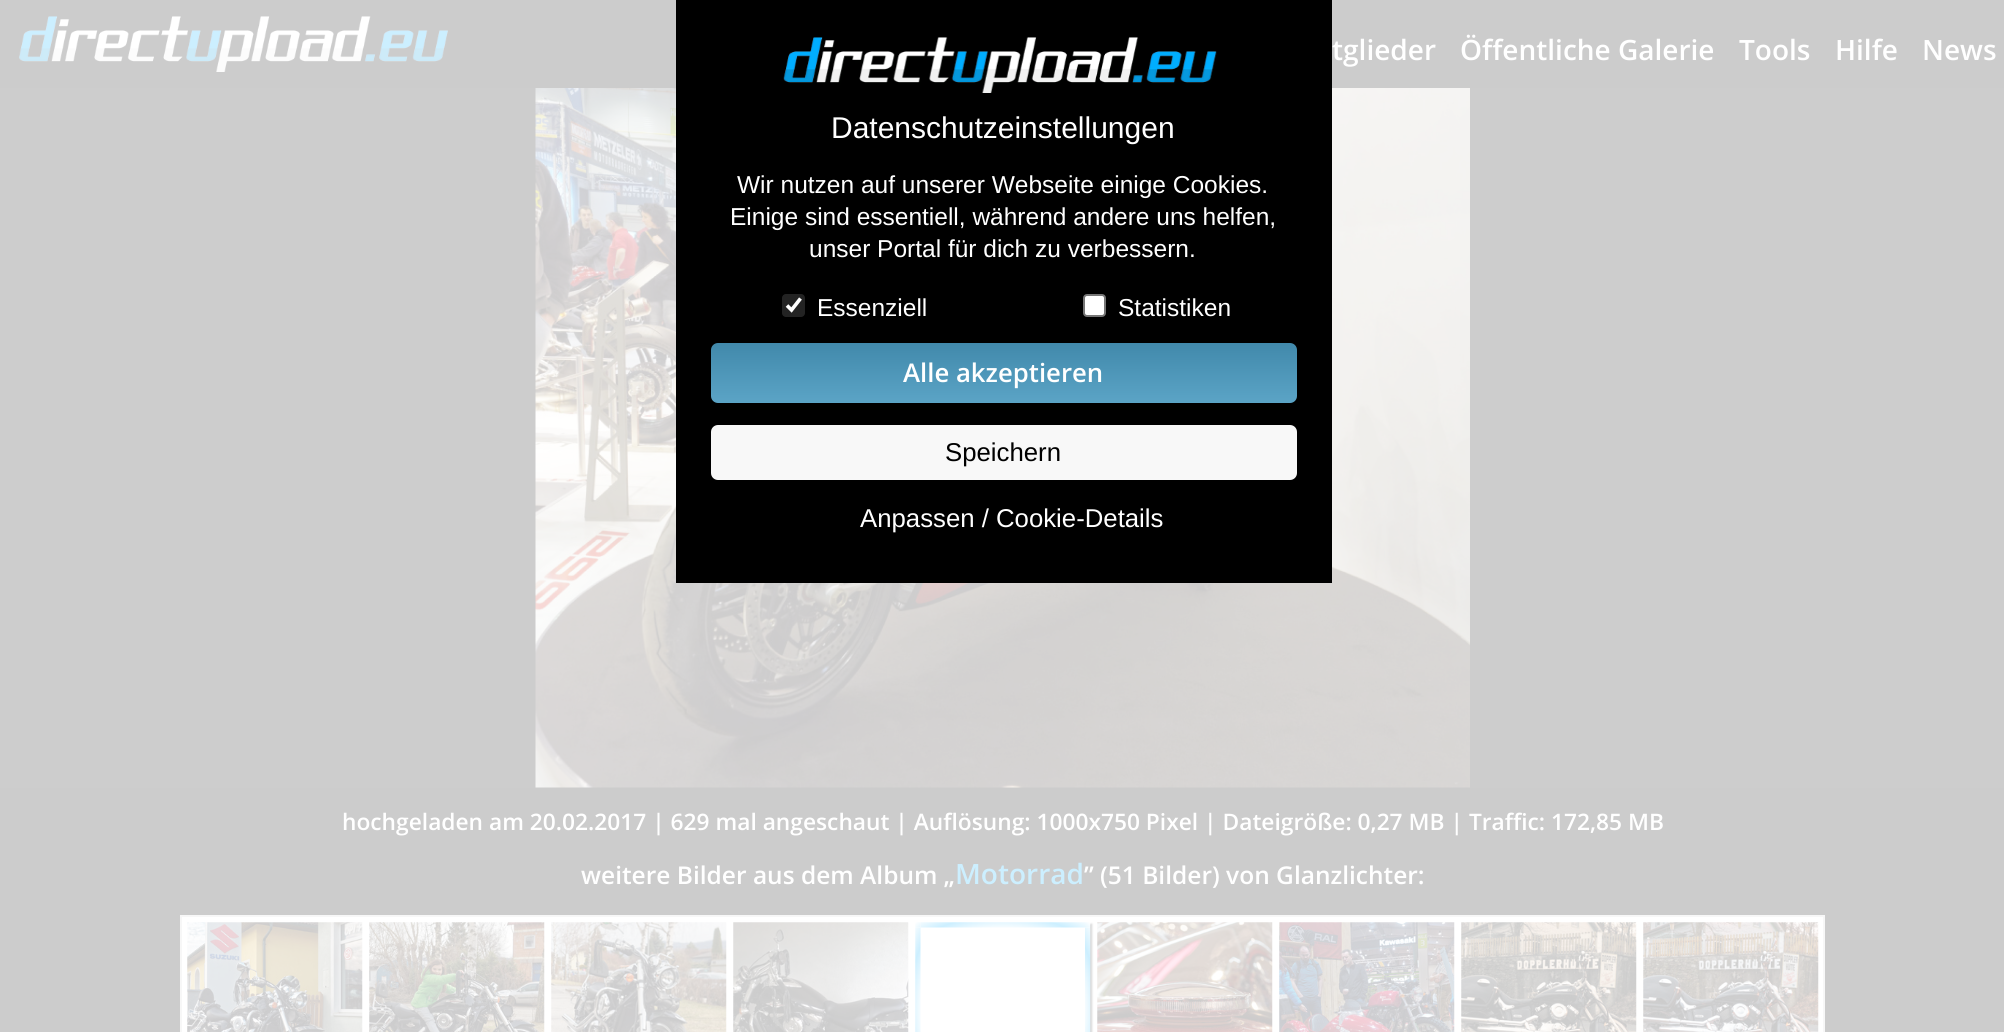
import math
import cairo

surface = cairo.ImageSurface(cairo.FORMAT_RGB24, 2004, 1032)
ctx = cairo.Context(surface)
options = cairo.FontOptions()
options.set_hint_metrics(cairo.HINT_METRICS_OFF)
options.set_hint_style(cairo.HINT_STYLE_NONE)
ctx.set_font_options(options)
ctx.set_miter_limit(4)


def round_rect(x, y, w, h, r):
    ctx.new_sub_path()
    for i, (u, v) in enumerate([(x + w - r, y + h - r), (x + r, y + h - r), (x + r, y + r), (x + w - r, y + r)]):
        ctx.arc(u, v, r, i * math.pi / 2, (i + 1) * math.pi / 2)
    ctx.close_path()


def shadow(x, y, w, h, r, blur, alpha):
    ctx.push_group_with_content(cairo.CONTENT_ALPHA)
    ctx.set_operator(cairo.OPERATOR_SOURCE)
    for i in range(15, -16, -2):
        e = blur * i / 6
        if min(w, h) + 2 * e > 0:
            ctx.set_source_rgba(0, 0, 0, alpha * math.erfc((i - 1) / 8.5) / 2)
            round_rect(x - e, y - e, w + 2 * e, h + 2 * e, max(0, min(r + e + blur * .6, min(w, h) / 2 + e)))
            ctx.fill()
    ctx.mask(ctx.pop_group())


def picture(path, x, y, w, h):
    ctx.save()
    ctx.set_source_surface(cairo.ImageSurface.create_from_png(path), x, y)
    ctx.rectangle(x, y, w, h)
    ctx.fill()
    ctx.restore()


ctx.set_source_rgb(1, 1, 1)
ctx.paint()
picture("img1.png", 0, 88, 2004, 700)
ctx.set_source_rgb(0.8, 0.8, 0.8)
ctx.rectangle(0, 0, 2004, 88)
ctx.fill()
picture("img2.png", 19, 16, 429, 56)
ctx.select_font_face("Open Sans SemiBold")
ctx.set_font_size(28)
ctx.set_source_rgb(1, 1, 1)
ctx.move_to(1332, 60)
ctx.show_text("tglieder")
ctx.move_to(1460, 60)
ctx.show_text("Öffentliche Galerie")
ctx.move_to(1739, 60)
ctx.show_text("Tools")
ctx.move_to(1835, 60)
ctx.show_text("Hilfe")
ctx.move_to(1922, 60)
ctx.show_text("News")
ctx.set_source_rgba(0.8, 0.8, 0.8, 0.98)
ctx.rectangle(0, 88, 2004, 700)
ctx.fill()
picture("img3.png", 535, 88, 935, 700)
ctx.set_source_rgb(0, 0, 0)
ctx.rectangle(676, 0, 656, 583)
ctx.fill()
picture("img4.png", 783, 37, 434, 56)
ctx.select_font_face("Liberation Sans")
ctx.set_font_size(30)
ctx.set_source_rgb(1, 1, 1)
ctx.move_to(831, 138)
ctx.show_text("Datenschutzeinstellungen")
ctx.set_font_size(24.5)
ctx.move_to(737, 193)
ctx.show_text("Wir nutzen auf unserer Webseite einige Cookies.")
ctx.move_to(730, 225)
ctx.show_text("Einige sind essentiell, während andere uns helfen,")
ctx.move_to(809, 257)
ctx.show_text("unser Portal für dich zu verbessern.")
ctx.set_source_rgb(0.137, 0.137, 0.137)
round_rect(782, 294, 23, 23, 4)
ctx.fill()
ctx.new_path()
ctx.move_to(787, 305.5)
ctx.line_to(791.5, 310)
ctx.line_to(800.5, 298.5)
ctx.set_source_rgb(1, 1, 1)
ctx.set_line_width(3.6)
ctx.stroke()
ctx.move_to(817, 316)
ctx.show_text("Essenziell")
round_rect(1084, 295, 21, 21, 3)
ctx.fill_preserve()
ctx.set_source_rgb(0.463, 0.463, 0.463)
ctx.set_line_width(2)
ctx.stroke()
ctx.set_source_rgb(1, 1, 1)
ctx.move_to(1118, 316)
ctx.show_text("Statistiken")
gradient = cairo.LinearGradient(1004, 343, 1004, 403)
gradient.add_color_stop_rgba(0, 0.255, 0.537, 0.671, 1)
gradient.add_color_stop_rgba(1, 0.357, 0.643, 0.776, 1)
ctx.set_source(gradient)
round_rect(711, 343, 586, 60, 7)
ctx.fill()
ctx.select_font_face("Open Sans SemiBold")
ctx.set_font_size(25.75)
ctx.set_source_rgb(1, 1, 1)
ctx.move_to(903, 382)
ctx.show_text("Alle akzeptieren")
ctx.set_source_rgb(0.969, 0.969, 0.969)
round_rect(711, 425, 586, 55, 7)
ctx.fill()
ctx.select_font_face("Liberation Sans")
ctx.set_source_rgb(0, 0, 0)
ctx.move_to(945, 461)
ctx.show_text("Speichern")
ctx.set_source_rgb(1, 1, 1)
ctx.move_to(860, 527)
ctx.show_text("Anpassen / Cookie-Details")
ctx.set_source_rgb(0.8, 0.8, 0.8)
ctx.rectangle(0, 788, 2004, 244)
ctx.fill()
ctx.select_font_face("Open Sans SemiBold")
ctx.set_font_size(22.75)
ctx.set_source_rgb(1, 1, 1)
ctx.move_to(342, 830)
ctx.show_text("hochgeladen am 20.02.2017 | 629 mal angeschaut | Auflösung: 1000x750 Pixel | Dateigröße: 0,27 MB | Traffic: 172,85 MB")
ctx.set_font_size(24.5)
ctx.move_to(581, 884)
ctx.show_text("weitere Bilder aus dem Album „")
ctx.set_font_size(28)
ctx.set_source_rgb(0.8, 0.937, 1)
ctx.move_to(955, 884)
ctx.show_text("Motorrad")
ctx.set_font_size(24.5)
ctx.set_source_rgb(1, 1, 1)
ctx.move_to(1084, 884)
ctx.show_text("” (51 Bilder) von Glanzlichter:")
ctx.rectangle(181, 916, 1643, 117)
ctx.fill_preserve()
ctx.set_source_rgb(0.965, 0.965, 0.965)
ctx.stroke()
picture("img5.png", 187, 922, 176, 110)
picture("img6.png", 369, 922, 176, 110)
picture("img7.png", 551, 922, 176, 110)
picture("img8.png", 733, 922, 176, 110)
ctx.save()
ctx.rectangle(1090, 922, 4, 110)
ctx.clip()
ctx.set_source_rgb(0.8, 0.8, 0.8)
shadow(917, 924, 175, 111, 0, 1, 0.8)
ctx.restore()
picture("img9.png", 915, 922, 176, 110)
picture("img10.png", 1097, 922, 176, 110)
picture("img11.png", 1279, 922, 176, 110)
picture("img12.png", 1461, 922, 176, 110)
picture("img13.png", 1643, 922, 176, 110)
surface.write_to_png("page.png")
